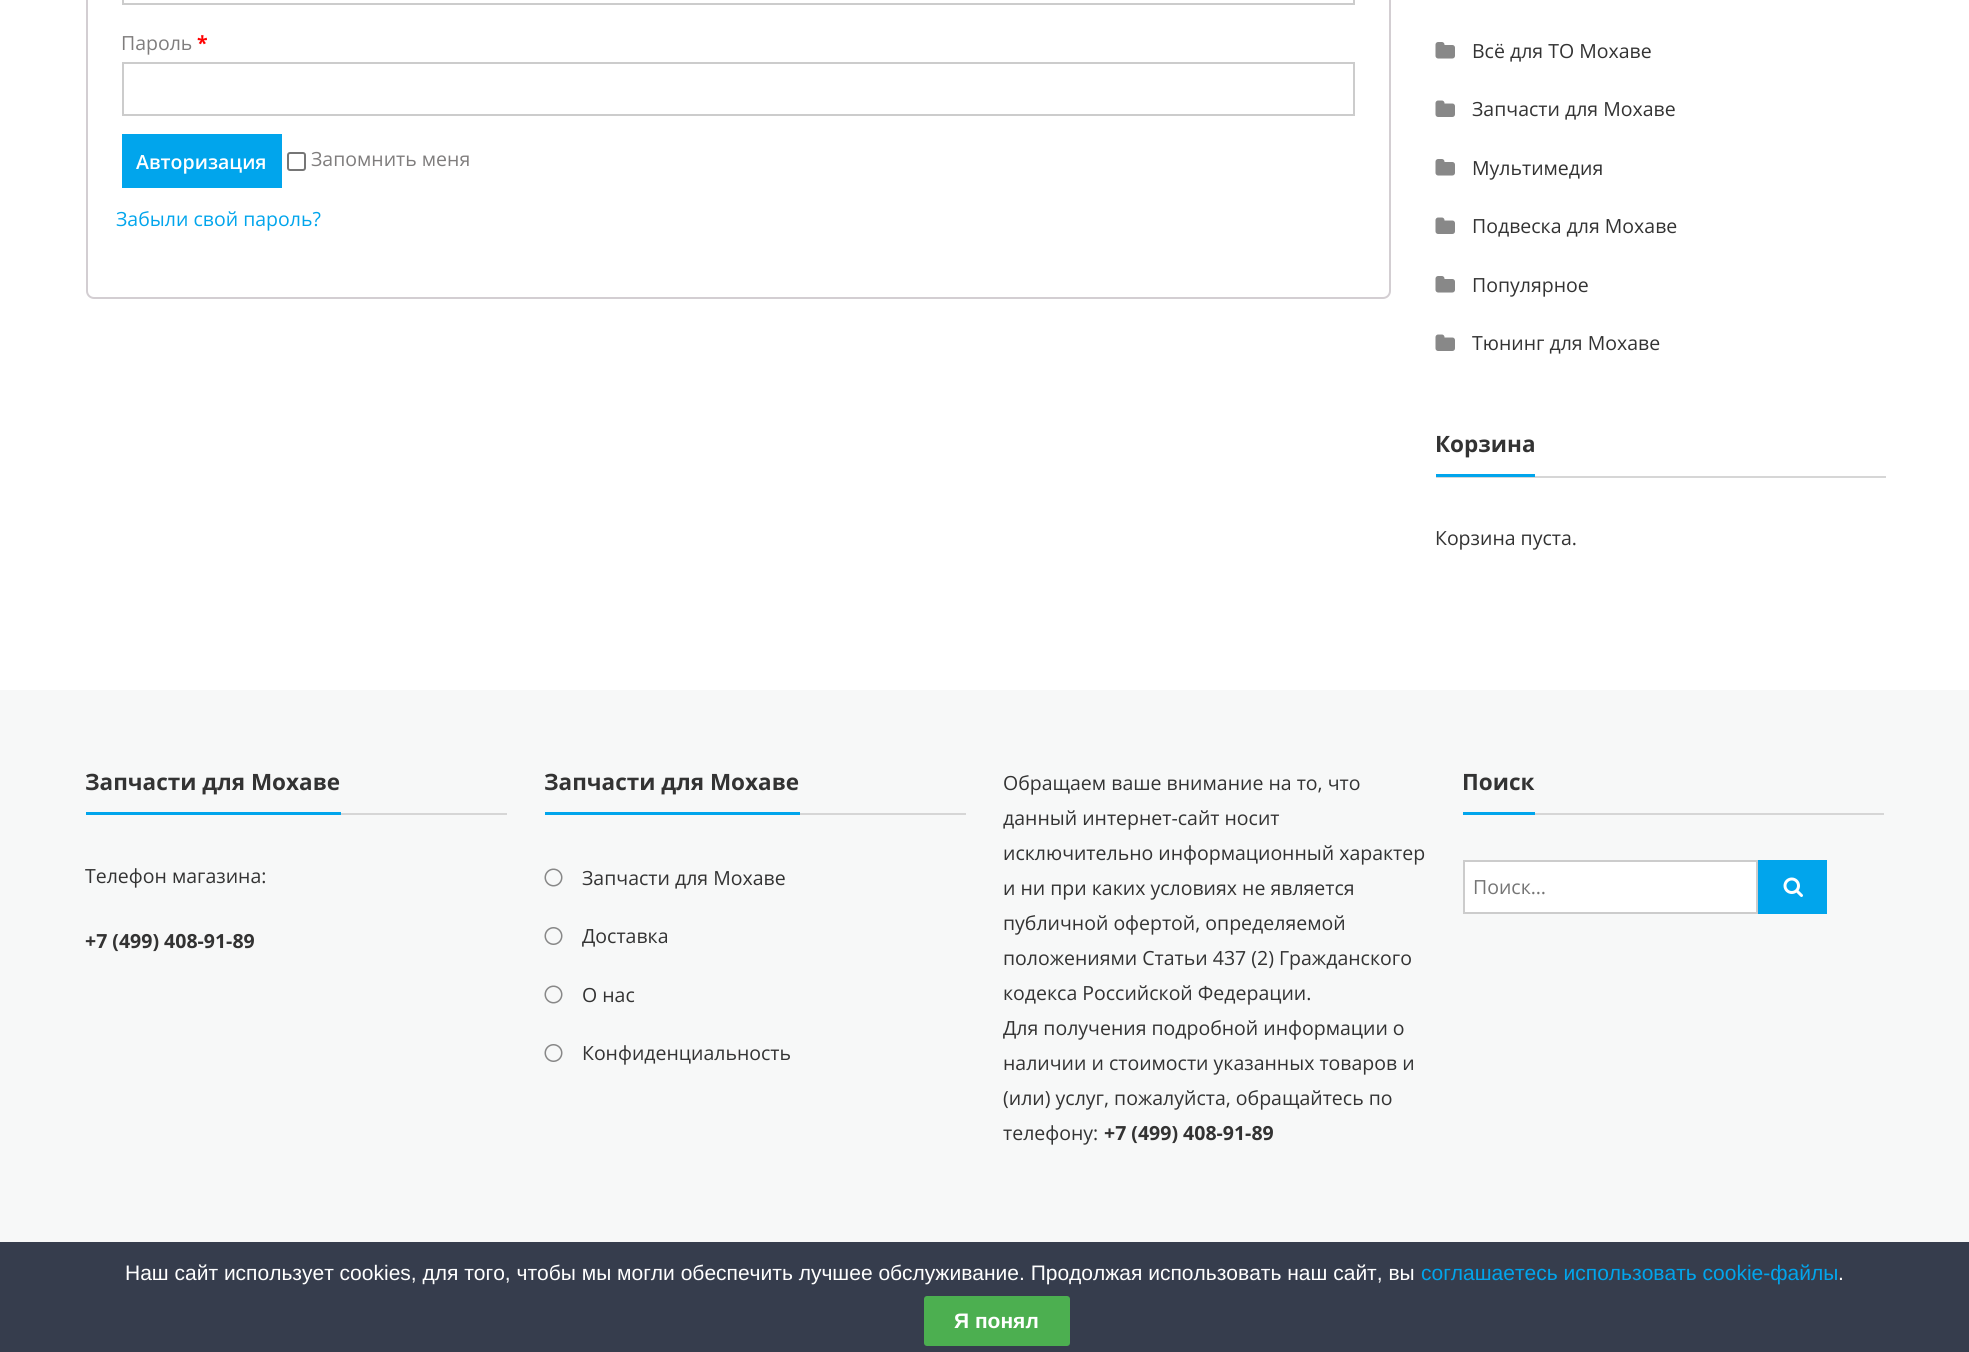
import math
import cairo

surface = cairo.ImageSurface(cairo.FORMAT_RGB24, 1969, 1352)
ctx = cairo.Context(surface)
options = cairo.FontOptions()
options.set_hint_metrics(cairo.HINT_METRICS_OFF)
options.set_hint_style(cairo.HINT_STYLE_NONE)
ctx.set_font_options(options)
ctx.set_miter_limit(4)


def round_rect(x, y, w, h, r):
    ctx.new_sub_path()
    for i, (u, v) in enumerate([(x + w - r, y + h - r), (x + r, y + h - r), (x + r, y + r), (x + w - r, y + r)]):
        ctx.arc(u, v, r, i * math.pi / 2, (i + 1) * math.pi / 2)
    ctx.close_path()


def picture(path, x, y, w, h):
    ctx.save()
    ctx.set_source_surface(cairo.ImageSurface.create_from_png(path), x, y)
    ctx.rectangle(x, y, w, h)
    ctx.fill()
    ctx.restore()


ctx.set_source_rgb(1, 1, 1)
ctx.paint()
round_rect(87, -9, 1303, 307, 7)
ctx.set_source_rgb(0.827, 0.808, 0.824)
ctx.stroke()
ctx.rectangle(123, -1, 1231, 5)
ctx.set_source_rgb(0.8, 0.8, 0.8)
ctx.stroke()
ctx.select_font_face("Open Sans")
ctx.set_font_size(19.5)
ctx.set_source_rgb(0.498, 0.49, 0.49)
ctx.move_to(121, 50)
ctx.show_text("Пароль")
ctx.select_font_face("Open Sans", cairo.FONT_SLANT_NORMAL, cairo.FONT_WEIGHT_BOLD)
ctx.set_source_rgb(1, 0, 0)
ctx.move_to(197, 50)
ctx.show_text("*")
ctx.rectangle(123, 63, 1231, 52)
ctx.set_source_rgb(0.8, 0.8, 0.8)
ctx.stroke()
ctx.set_source_rgb(0.004, 0.647, 0.925)
ctx.rectangle(122, 134, 160, 54)
ctx.fill()
ctx.select_font_face("Open Sans SemiBold")
ctx.set_source_rgb(1, 1, 1)
ctx.move_to(136, 169)
ctx.show_text("Авторизация")
round_rect(288, 153, 17, 17, 2)
ctx.set_source_rgb(0.463, 0.463, 0.463)
ctx.stroke()
ctx.select_font_face("Open Sans")
ctx.set_source_rgb(0.498, 0.49, 0.49)
ctx.move_to(311, 166)
ctx.show_text("Запомнить меня")
ctx.set_source_rgb(0.004, 0.647, 0.925)
ctx.move_to(116, 226)
ctx.show_text("Забыли свой пароль?")
picture("img1.png", 1435, 42, 20, 17)
ctx.set_source_rgb(0.2, 0.2, 0.2)
ctx.move_to(1472, 58)
ctx.show_text("Всё для ТО Мохаве")
picture("img2.png", 1435, 100, 20, 17)
ctx.move_to(1472, 116)
ctx.show_text("Запчасти для Мохаве")
picture("img1.png", 1435, 159, 20, 17)
ctx.move_to(1472, 175)
ctx.show_text("Мультимедия")
picture("img2.png", 1435, 217, 20, 17)
ctx.move_to(1472, 233)
ctx.show_text("Подвеска для Мохаве")
picture("img1.png", 1435, 276, 20, 17)
ctx.move_to(1472, 292)
ctx.show_text("Популярное")
picture("img2.png", 1435, 334, 20, 17)
ctx.move_to(1472, 350)
ctx.show_text("Тюнинг для Мохаве")
ctx.set_source_rgb(0.839, 0.839, 0.839)
ctx.rectangle(1436, 476, 450, 2)
ctx.fill()
ctx.set_source_rgb(0.004, 0.647, 0.925)
ctx.rectangle(1436, 474, 99, 3)
ctx.fill()
ctx.select_font_face("Open Sans", cairo.FONT_SLANT_NORMAL, cairo.FONT_WEIGHT_BOLD)
ctx.set_font_size(22.5)
ctx.set_source_rgb(0.2, 0.2, 0.2)
ctx.move_to(1435, 452)
ctx.show_text("Корзина")
ctx.select_font_face("Open Sans")
ctx.set_font_size(19.5)
ctx.move_to(1435, 545)
ctx.show_text("Корзина пуста.")
ctx.set_source_rgb(0.965, 0.969, 0.969)
ctx.rectangle(0, 690, 1969, 552)
ctx.fill()
ctx.set_source_rgb(0.839, 0.839, 0.839)
ctx.rectangle(341, 813, 166, 2)
ctx.fill()
ctx.set_source_rgb(0.004, 0.647, 0.925)
ctx.rectangle(86, 812, 255, 3)
ctx.fill()
ctx.select_font_face("Open Sans", cairo.FONT_SLANT_NORMAL, cairo.FONT_WEIGHT_BOLD)
ctx.set_font_size(22.5)
ctx.set_source_rgb(0.2, 0.2, 0.2)
ctx.move_to(85, 790)
ctx.show_text("Запчасти для Мохаве")
ctx.select_font_face("Open Sans")
ctx.set_font_size(19.5)
ctx.move_to(85, 883)
ctx.show_text("Телефон магазина:")
ctx.select_font_face("Open Sans", cairo.FONT_SLANT_NORMAL, cairo.FONT_WEIGHT_BOLD)
ctx.move_to(85, 948)
ctx.show_text("+7 (499) 408-91-89")
ctx.set_source_rgb(0.839, 0.839, 0.839)
ctx.rectangle(800, 813, 166, 2)
ctx.fill()
ctx.set_source_rgb(0.004, 0.647, 0.925)
ctx.rectangle(545, 812, 255, 3)
ctx.fill()
ctx.set_font_size(22.5)
ctx.set_source_rgb(0.2, 0.2, 0.2)
ctx.move_to(544, 790)
ctx.show_text("Запчасти для Мохаве")
picture("img3.png", 544, 868, 19, 19)
ctx.select_font_face("Open Sans")
ctx.set_font_size(19.5)
ctx.move_to(582, 885)
ctx.show_text("Запчасти для Мохаве")
picture("img4.png", 544, 927, 19, 18)
ctx.move_to(582, 943)
ctx.show_text("Доставка")
picture("img3.png", 544, 985, 19, 19)
ctx.move_to(582, 1002)
ctx.show_text("О нас")
picture("img4.png", 544, 1044, 19, 18)
ctx.move_to(582, 1060)
ctx.show_text("Конфиденциальность")
ctx.move_to(1003, 790)
ctx.show_text("Обращаем ваше внимание на то, что")
ctx.move_to(1003, 825)
ctx.show_text("данный интернет-сайт носит")
ctx.move_to(1003, 860)
ctx.show_text("исключительно информационный характер")
ctx.move_to(1003, 895)
ctx.show_text("и ни при каких условиях не является")
ctx.move_to(1003, 930)
ctx.show_text("публичной офертой, определяемой")
ctx.move_to(1003, 965)
ctx.show_text("положениями Статьи 437 (2) Гражданского")
ctx.move_to(1003, 1000)
ctx.show_text("кодекса Российской Федерации.")
ctx.move_to(1003, 1035)
ctx.show_text("Для получения подробной информации о")
ctx.move_to(1003, 1070)
ctx.show_text("наличии и стоимости указанных товаров и")
ctx.move_to(1003, 1105)
ctx.show_text("(или) услуг, пожалуйста, обращайтесь по")
ctx.move_to(1003, 1140)
ctx.show_text("телефону:")
ctx.select_font_face("Open Sans", cairo.FONT_SLANT_NORMAL, cairo.FONT_WEIGHT_BOLD)
ctx.move_to(1104, 1140)
ctx.show_text("+7 (499) 408-91-89")
ctx.set_source_rgb(0.839, 0.839, 0.839)
ctx.rectangle(1535, 813, 349, 2)
ctx.fill()
ctx.set_source_rgb(0.004, 0.647, 0.925)
ctx.rectangle(1463, 812, 72, 3)
ctx.fill()
ctx.set_font_size(22.5)
ctx.set_source_rgb(0.2, 0.2, 0.2)
ctx.move_to(1462, 790)
ctx.show_text("Поиск")
ctx.set_source_rgb(1, 1, 1)
ctx.rectangle(1464, 861, 293, 52)
ctx.fill_preserve()
ctx.set_source_rgb(0.8, 0.8, 0.8)
ctx.stroke()
ctx.select_font_face("Open Sans")
ctx.set_font_size(19.5)
ctx.set_source_rgb(0.459, 0.459, 0.459)
ctx.move_to(1473, 894)
ctx.show_text("Поиск…")
ctx.set_source_rgb(0.004, 0.647, 0.925)
ctx.rectangle(1758, 860, 69, 54)
ctx.fill()
picture("img5.png", 1783, 877, 20, 20)
ctx.set_source_rgb(0.212, 0.239, 0.302)
ctx.rectangle(0, 1242, 1969, 110)
ctx.fill()
ctx.select_font_face("Liberation Sans")
ctx.set_font_size(21)
ctx.set_source_rgb(1, 1, 1)
ctx.move_to(125, 1280)
ctx.show_text("Наш сайт использует cookies, для того, чтобы мы могли обеспечить лучшее обслуживание. Продолжая использовать наш сайт, вы")
ctx.set_source_rgb(0.004, 0.647, 0.925)
ctx.move_to(1421, 1280)
ctx.show_text("соглашаетесь использовать cookie-файлы")
ctx.set_source_rgb(1, 1, 1)
ctx.move_to(1838, 1280)
ctx.show_text(".")
ctx.set_source_rgb(0.298, 0.686, 0.314)
round_rect(924, 1296, 146, 50, 3)
ctx.fill()
ctx.select_font_face("Liberation Sans", cairo.FONT_SLANT_NORMAL, cairo.FONT_WEIGHT_BOLD)
ctx.set_source_rgb(1, 1, 1)
ctx.move_to(954, 1328)
ctx.show_text("Я понял")
surface.write_to_png("page.png")
